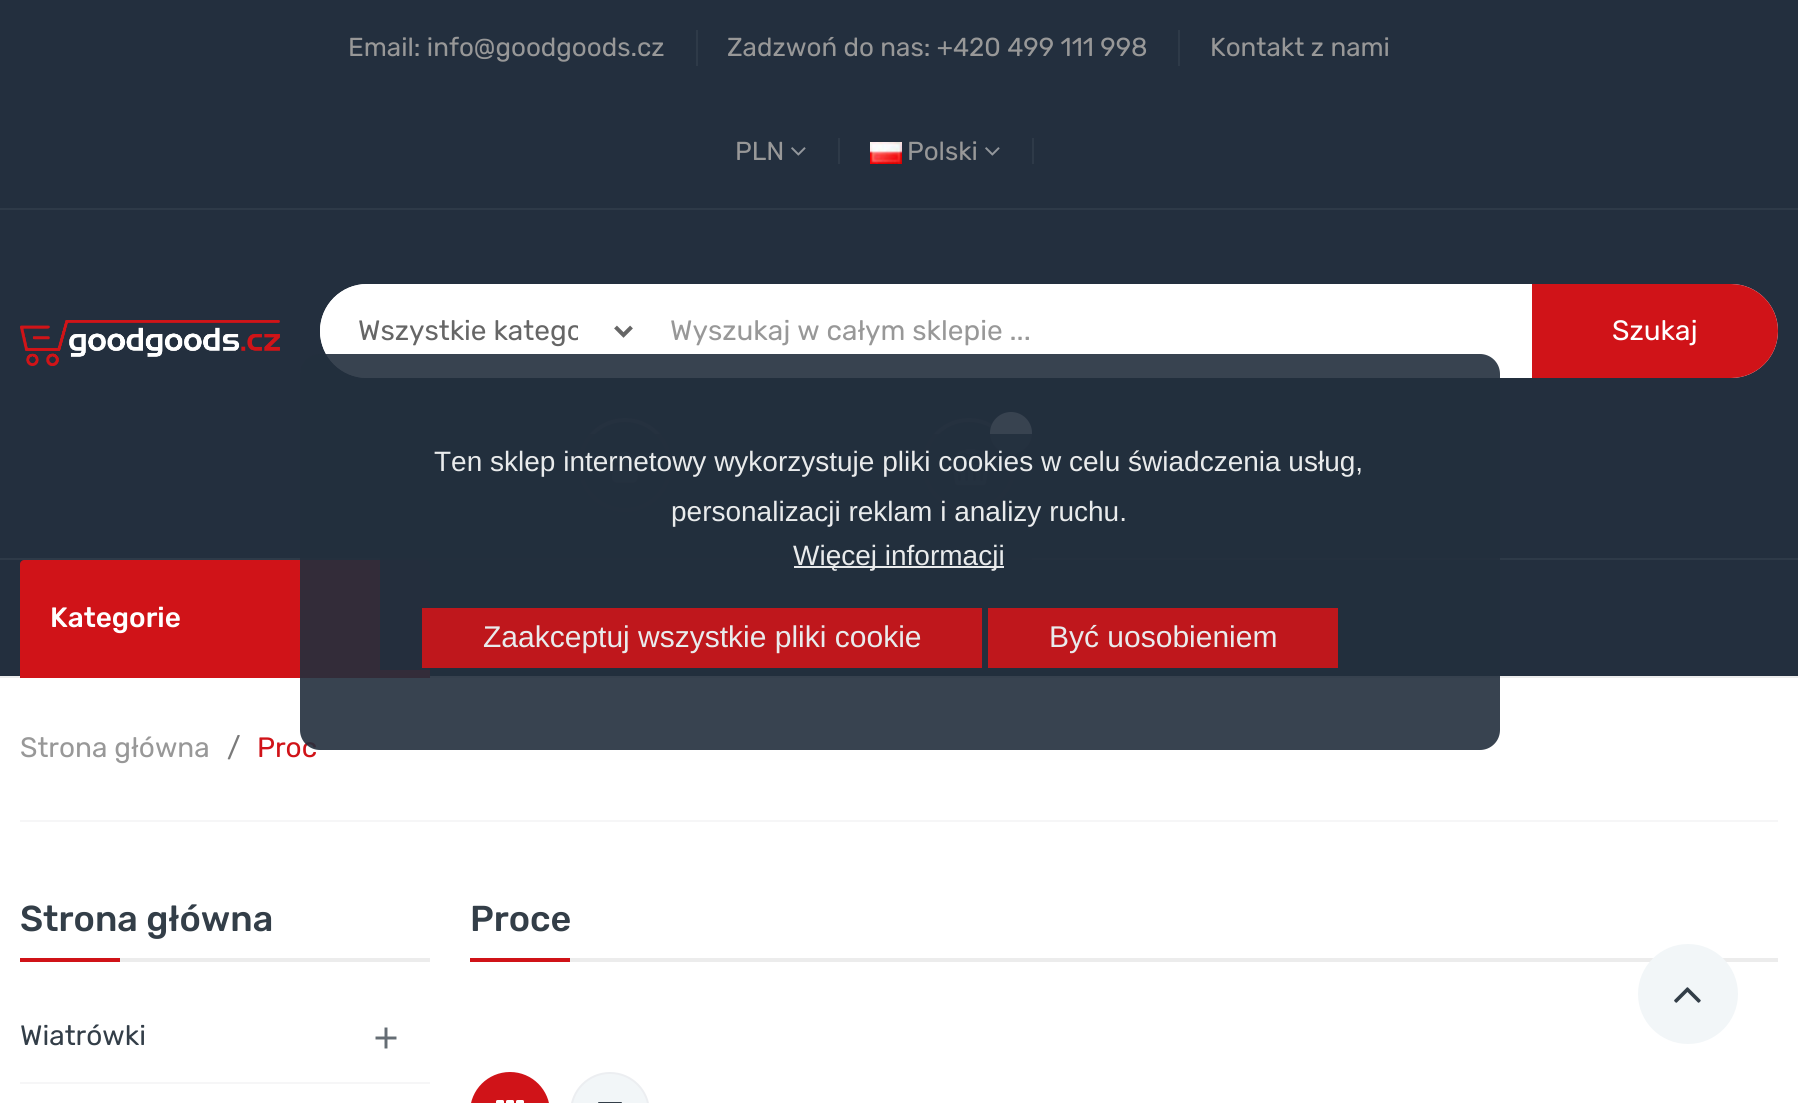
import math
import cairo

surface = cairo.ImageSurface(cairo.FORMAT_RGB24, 1798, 1103)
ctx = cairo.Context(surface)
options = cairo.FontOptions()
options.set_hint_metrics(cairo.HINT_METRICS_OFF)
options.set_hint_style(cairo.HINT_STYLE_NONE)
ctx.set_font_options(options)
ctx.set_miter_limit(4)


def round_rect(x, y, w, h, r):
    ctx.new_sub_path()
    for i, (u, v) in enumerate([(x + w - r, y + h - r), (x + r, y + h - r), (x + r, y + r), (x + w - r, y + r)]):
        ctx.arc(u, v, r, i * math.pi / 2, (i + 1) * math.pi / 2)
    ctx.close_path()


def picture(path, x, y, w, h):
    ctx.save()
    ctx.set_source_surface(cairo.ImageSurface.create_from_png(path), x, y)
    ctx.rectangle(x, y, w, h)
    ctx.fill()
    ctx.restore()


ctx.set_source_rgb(1, 1, 1)
ctx.paint()
ctx.set_source_rgb(0.137, 0.184, 0.243)
ctx.rectangle(0, 0, 1798, 676)
ctx.fill()
ctx.set_source_rgb(0.18, 0.227, 0.282)
ctx.rectangle(0, 208, 1798, 2)
ctx.fill()
ctx.rectangle(696, 30, 2, 36)
ctx.fill()
ctx.select_font_face("Rubik")
ctx.set_font_size(26)
ctx.set_source_rgb(0.596, 0.596, 0.596)
ctx.move_to(348, 56)
ctx.show_text("Email: info@goodgoods.cz")
ctx.set_source_rgb(0.18, 0.227, 0.282)
ctx.rectangle(1178, 30, 2, 36)
ctx.fill()
ctx.set_source_rgb(0.596, 0.596, 0.596)
ctx.move_to(727, 56)
ctx.show_text("Zadzwoń do nas: +420 499 111 998")
ctx.move_to(1210, 56)
ctx.show_text("Kontakt z nami")
ctx.set_source_rgb(0.18, 0.227, 0.282)
ctx.rectangle(838, 138, 2, 26)
ctx.fill()
ctx.set_source_rgb(0.596, 0.596, 0.596)
ctx.move_to(735, 160)
ctx.show_text("PLN")
picture("img1.png", 791, 147, 15, 9)
ctx.set_source_rgb(0.18, 0.227, 0.282)
ctx.rectangle(1032, 138, 2, 26)
ctx.fill()
picture("img2.png", 870, 142, 32, 22)
ctx.set_source_rgb(0.596, 0.596, 0.596)
ctx.move_to(907, 160)
ctx.show_text("Polski")
picture("img1.png", 985, 147, 15, 9)
picture("img3.png", 20, 320, 260, 46)
ctx.set_source_rgb(1, 1, 1)
round_rect(320, 284, 1458, 94, 47)
ctx.fill()
ctx.new_path()
ctx.move_to(367, 284)
ctx.line_to(640, 284)
ctx.line_to(640, 378)
ctx.line_to(367, 378)
ctx.curve_to(341, 378, 320, 357, 320, 331)
ctx.curve_to(320, 305, 341, 284, 367, 284)
ctx.close_path()
ctx.fill()
ctx.new_path()
ctx.move_to(615.5, 327)
ctx.line_to(623.5, 335)
ctx.line_to(631.5, 327)
ctx.set_source_rgb(0.4, 0.4, 0.4)
ctx.set_line_width(4)
ctx.stroke()
ctx.save()
ctx.rectangle(358, 312, 220, 38)
ctx.clip()
ctx.set_font_size(28)
ctx.move_to(358, 340)
ctx.show_text("Wszystkie katego")
ctx.restore()
ctx.set_font_size(28)
ctx.set_source_rgb(0.596, 0.596, 0.596)
ctx.move_to(670, 340)
ctx.show_text("Wyszukaj w całym sklepie ...")
ctx.set_source_rgb(0.816, 0.078, 0.094)
ctx.new_path()
ctx.move_to(1532, 284)
ctx.line_to(1731, 284)
ctx.curve_to(1757, 284, 1778, 305, 1778, 331)
ctx.curve_to(1778, 357, 1757, 378, 1731, 378)
ctx.line_to(1532, 378)
ctx.close_path()
ctx.fill()
ctx.set_source_rgb(1, 1, 1)
ctx.move_to(1612, 340)
ctx.show_text("Szukaj")
ctx.new_path()
ctx.arc(625, 465, 45, 0, 2 * math.pi)
ctx.set_source_rgb(0.231, 0.275, 0.314)
ctx.stroke()
picture("img4.png", 612, 451, 26, 32)
ctx.arc(969, 465, 45, 0, 2 * math.pi)
ctx.stroke()
picture("img5.png", 950, 449, 42, 37)
ctx.set_source_rgb(1, 1, 1)
ctx.arc(1011, 433, 21, 0, 2 * math.pi)
ctx.fill()
ctx.set_source_rgb(0.18, 0.227, 0.282)
ctx.rectangle(0, 558, 1798, 2)
ctx.fill()
ctx.set_source_rgb(0.922, 0.922, 0.922)
ctx.rectangle(0, 676, 1798, 2)
ctx.fill()
ctx.set_source_rgb(0.816, 0.078, 0.094)
ctx.new_path()
ctx.move_to(24, 560)
ctx.line_to(426, 560)
ctx.curve_to(428, 560, 430, 562, 430, 564)
ctx.line_to(430, 678)
ctx.line_to(20, 678)
ctx.line_to(20, 564)
ctx.curve_to(20, 562, 22, 560, 24, 560)
ctx.close_path()
ctx.fill()
ctx.select_font_face("Rubik Medium")
ctx.set_source_rgb(1, 1, 1)
ctx.move_to(50, 627)
ctx.show_text("Kategorie")
ctx.set_source_rgb(0.961, 0.961, 0.965)
ctx.rectangle(20, 820, 1758, 2)
ctx.fill()
ctx.select_font_face("Rubik")
ctx.set_source_rgb(0.596, 0.596, 0.596)
ctx.move_to(20, 757)
ctx.show_text("Strona główna")
ctx.set_source_rgb(0.478, 0.478, 0.478)
ctx.move_to(227, 757)
ctx.show_text("/")
ctx.set_source_rgb(0.816, 0.078, 0.094)
ctx.move_to(257, 757)
ctx.show_text("Proc")
ctx.set_source_rgb(0.922, 0.922, 0.922)
ctx.rectangle(120, 958, 310, 4)
ctx.fill()
ctx.select_font_face("Rubik Medium")
ctx.set_font_size(36)
ctx.set_source_rgb(0.2, 0.243, 0.282)
ctx.move_to(20, 931)
ctx.show_text("Strona główna")
ctx.set_source_rgb(0.816, 0.078, 0.094)
ctx.rectangle(20, 958, 100, 4)
ctx.fill()
ctx.set_source_rgb(0.961, 0.961, 0.965)
ctx.rectangle(20, 1082, 410, 2)
ctx.fill()
ctx.select_font_face("Rubik")
ctx.set_font_size(28)
ctx.set_source_rgb(0.2, 0.243, 0.282)
ctx.move_to(20, 1045)
ctx.show_text("Wiatrówki")
picture("img6.png", 375, 1027, 22, 22)
ctx.set_source_rgb(0.922, 0.922, 0.922)
ctx.rectangle(570, 958, 1208, 4)
ctx.fill()
ctx.select_font_face("Rubik Medium")
ctx.set_font_size(36)
ctx.set_source_rgb(0.2, 0.243, 0.282)
ctx.move_to(470, 931)
ctx.show_text("Proce")
ctx.set_source_rgb(0.816, 0.078, 0.094)
ctx.rectangle(470, 958, 100, 4)
ctx.fill()
round_rect(471, 1073, 78, 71, 39)
ctx.fill_preserve()
ctx.set_line_width(2)
ctx.stroke()
picture("img7.png", 496, 1100, 28, 3)
ctx.set_source_rgb(0.949, 0.961, 0.969)
round_rect(571, 1073, 78, 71, 39)
ctx.fill_preserve()
ctx.set_source_rgb(0.922, 0.933, 0.945)
ctx.stroke()
picture("img8.png", 598, 1102, 24, 1)
ctx.set_source_rgba(0.137, 0.184, 0.243, 0.9)
round_rect(300, 354, 1200, 396, 20)
ctx.fill()
ctx.rectangle(380, 434, 652, 236)
ctx.fill()
ctx.select_font_face("Liberation Sans")
ctx.set_font_size(28)
ctx.set_source_rgb(0.914, 0.918, 0.925)
ctx.move_to(434, 471)
ctx.show_text("Ten sklep internetowy wykorzystuje pliki cookies w celu świadczenia usług,")
ctx.move_to(671, 521)
ctx.show_text("personalizacji reklam i analizy ruchu.")
ctx.rectangle(794, 566, 210, 2)
ctx.fill()
ctx.move_to(793, 565)
ctx.show_text("Więcej informacji")
ctx.set_source_rgb(0.749, 0.09, 0.11)
ctx.rectangle(422, 608, 560, 60)
ctx.fill()
ctx.set_font_size(30)
ctx.set_source_rgb(0.914, 0.918, 0.925)
ctx.move_to(483, 647)
ctx.show_text("Zaakceptuj wszystkie pliki cookie")
ctx.set_source_rgb(0.749, 0.09, 0.11)
ctx.rectangle(988, 608, 350, 60)
ctx.fill()
ctx.set_source_rgb(0.914, 0.918, 0.925)
ctx.move_to(1049, 647)
ctx.show_text("Być uosobieniem")
ctx.set_source_rgb(0.949, 0.961, 0.969)
ctx.new_path()
ctx.arc(1688, 994, 50, 0, 2 * math.pi)
ctx.fill()
picture("img9.png", 1674, 987, 27, 16)
surface.write_to_png("page.png")
